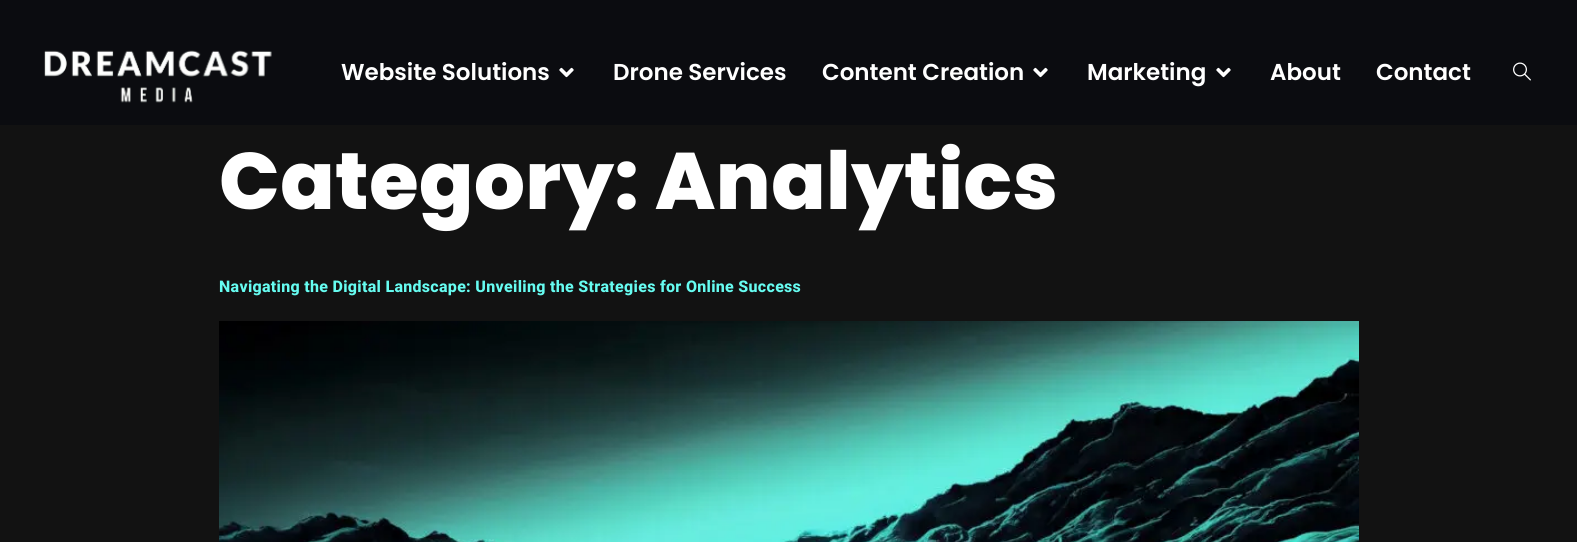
import math
import cairo

surface = cairo.ImageSurface(cairo.FORMAT_RGB24, 1577, 542)
ctx = cairo.Context(surface)
options = cairo.FontOptions()
options.set_hint_metrics(cairo.HINT_METRICS_OFF)
options.set_hint_style(cairo.HINT_STYLE_NONE)
ctx.set_font_options(options)
ctx.set_miter_limit(4)


def spaced_text(x, y, s, letter, word):
    ctx.move_to(x, y)
    for ch in s:
        ctx.show_text(ch)
        ctx.rel_move_to(letter + word * (ch == ' '), 0)


def picture(path, x, y, w, h):
    ctx.save()
    ctx.set_source_surface(cairo.ImageSurface.create_from_png(path), x, y)
    ctx.rectangle(x, y, w, h)
    ctx.fill()
    ctx.restore()


ctx.set_source_rgb(0.071, 0.071, 0.071)
ctx.paint()
ctx.set_source_rgb(0.043, 0.047, 0.063)
ctx.rectangle(0, 0, 1577, 125)
ctx.fill()
picture("img1.png", 44, 50, 228, 53)
ctx.select_font_face("Poppins SemiBold")
ctx.set_font_size(23)
ctx.set_source_rgb(1, 1, 1)
ctx.move_to(341, 80)
ctx.show_text("Website Solutions")
picture("img2.png", 559, 67, 15, 11)
ctx.move_to(613, 80)
ctx.show_text("Drone Services")
ctx.move_to(822, 80)
ctx.show_text("Content Creation")
picture("img2.png", 1033, 67, 15, 11)
ctx.move_to(1087, 80)
ctx.show_text("Marketing")
picture("img2.png", 1216, 67, 15, 11)
ctx.move_to(1270, 80)
ctx.show_text("About")
ctx.move_to(1376, 80)
ctx.show_text("Contact")
picture("img3.png", 1513, 62, 18, 19)
ctx.select_font_face("Poppins ExtraBold")
ctx.set_font_size(80)
spaced_text(219, 209, "Category: Analytics", 0.5, 0)
ctx.select_font_face("Roboto ExtraBold")
ctx.set_font_size(16)
ctx.set_source_rgb(0.4, 0.988, 0.945)
spaced_text(219, 292, "Navigating the Digital Landscape: Unveiling the Strategies for Online Success", 0.3, 0)
picture("img4.png", 219, 321, 1140, 221)
surface.write_to_png("page.png")
